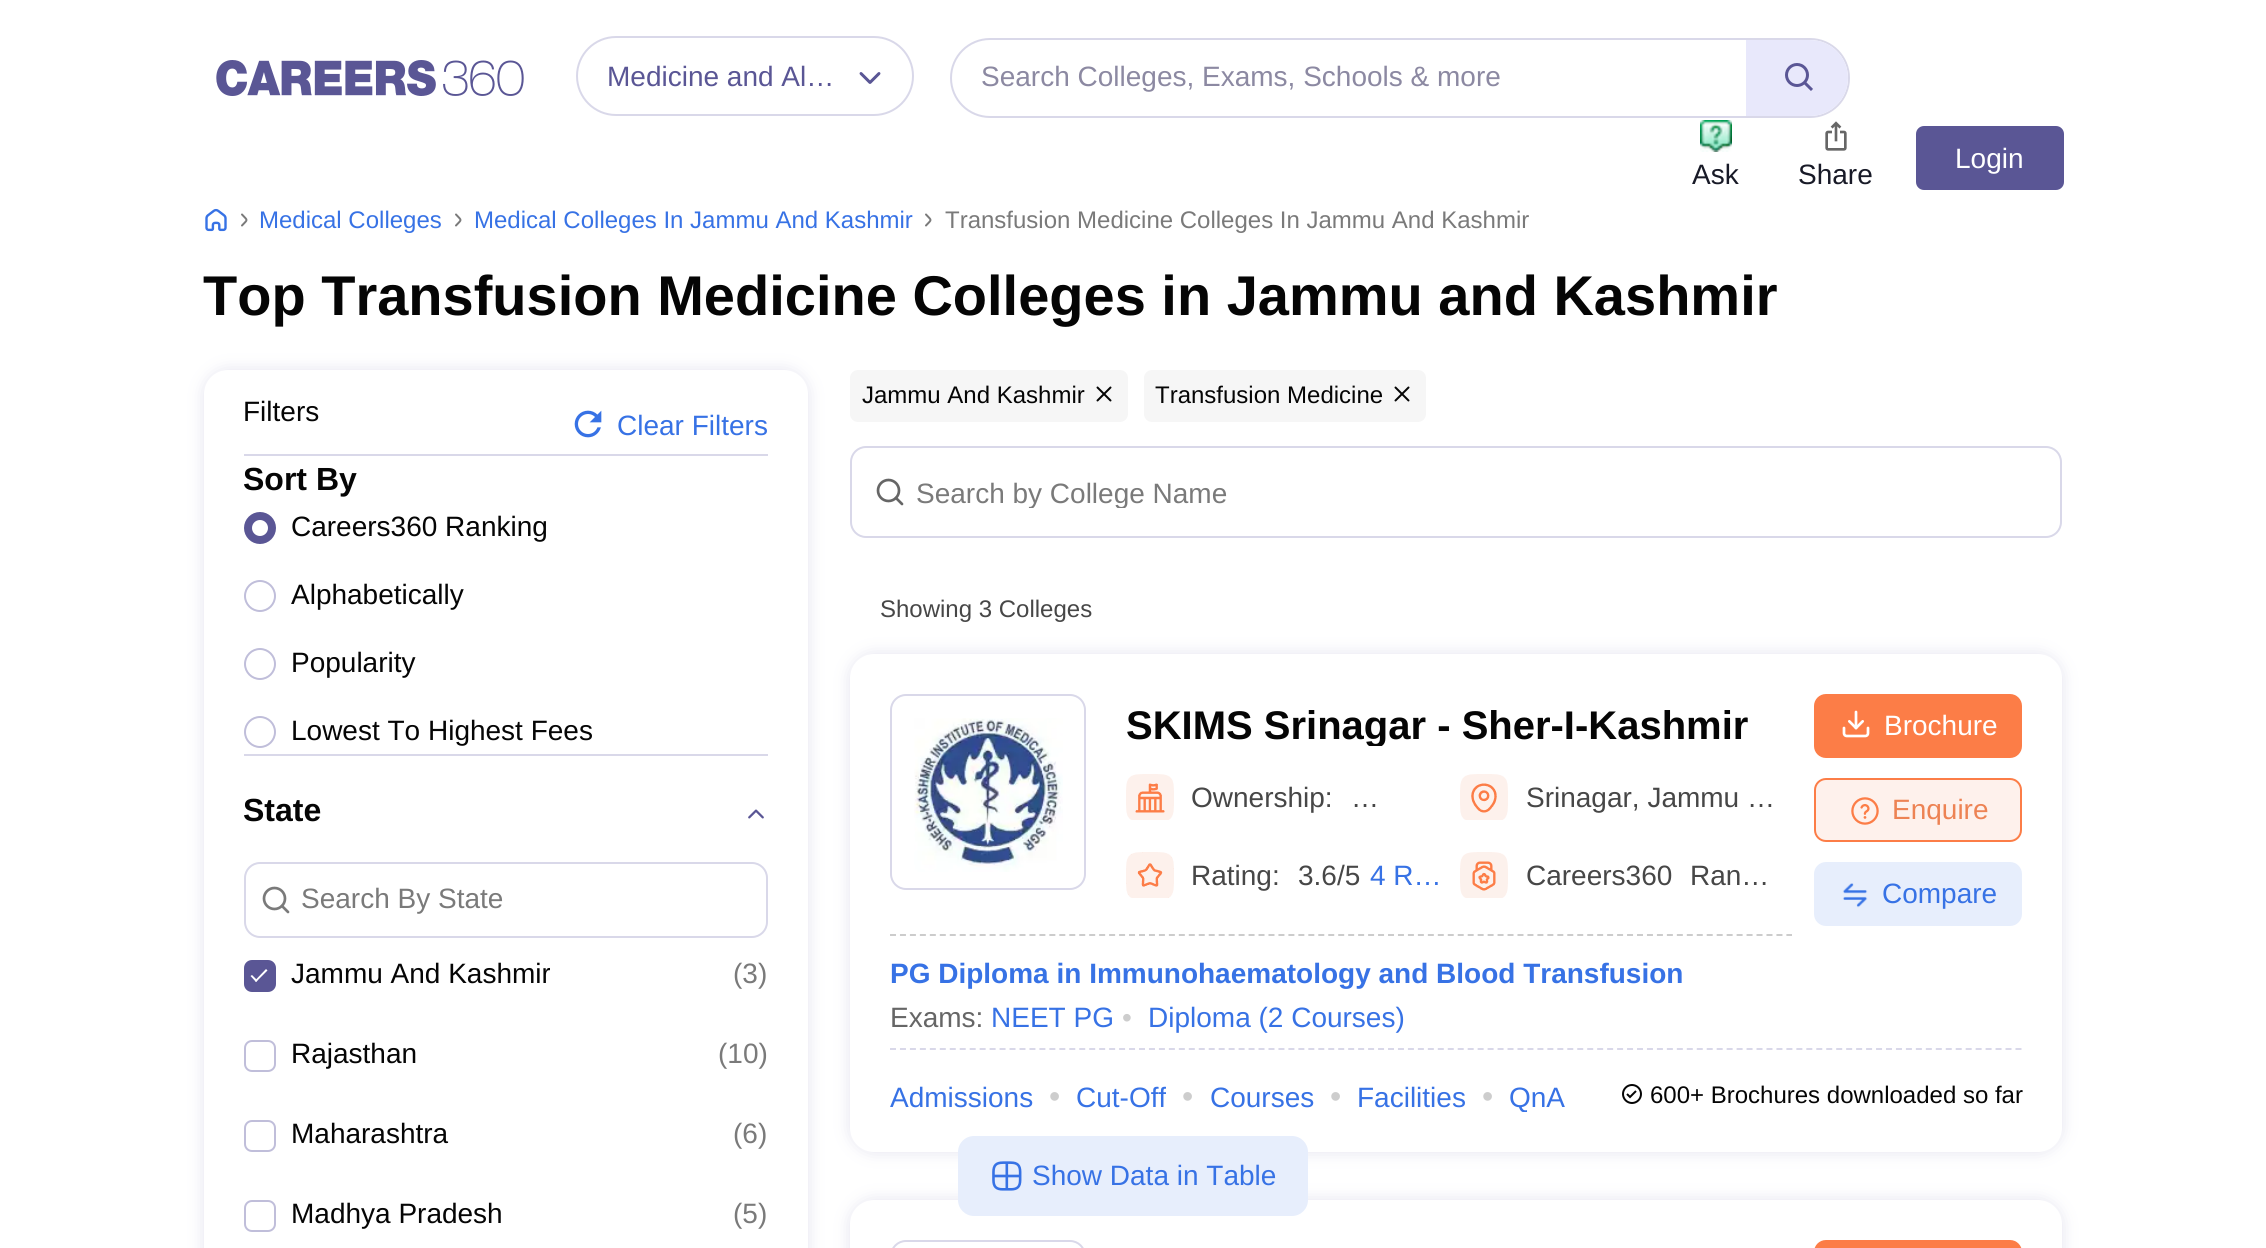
import math
import cairo

surface = cairo.ImageSurface(cairo.FORMAT_RGB24, 2266, 1248)
ctx = cairo.Context(surface)
options = cairo.FontOptions()
options.set_hint_metrics(cairo.HINT_METRICS_OFF)
options.set_hint_style(cairo.HINT_STYLE_NONE)
ctx.set_font_options(options)
ctx.set_miter_limit(4)


def round_rect(x, y, w, h, r):
    ctx.new_sub_path()
    for i, (u, v) in enumerate([(x + w - r, y + h - r), (x + r, y + h - r), (x + r, y + r), (x + w - r, y + r)]):
        ctx.arc(u, v, r, i * math.pi / 2, (i + 1) * math.pi / 2)
    ctx.close_path()


def shadow(x, y, w, h, r, blur, alpha):
    ctx.push_group_with_content(cairo.CONTENT_ALPHA)
    ctx.set_operator(cairo.OPERATOR_SOURCE)
    for i in range(15, -16, -2):
        e = blur * i / 6
        if min(w, h) + 2 * e > 0:
            ctx.set_source_rgba(0, 0, 0, alpha * math.erfc((i - 1) / 8.5) / 2)
            round_rect(x - e, y - e, w + 2 * e, h + 2 * e, max(0, min(r + e + blur * .6, min(w, h) / 2 + e)))
            ctx.fill()
    ctx.mask(ctx.pop_group())


def picture(path, x, y, w, h):
    ctx.save()
    ctx.set_source_surface(cairo.ImageSurface.create_from_png(path), x, y)
    ctx.rectangle(x, y, w, h)
    ctx.fill()
    ctx.restore()


ctx.set_source_rgb(1, 1, 1)
ctx.paint()
picture("img1.png", 216, 60, 308, 36)
round_rect(577, 37, 336, 78, 39)
ctx.set_source_rgb(0.851, 0.847, 0.914)
ctx.stroke()
ctx.select_font_face("Liberation Sans")
ctx.set_font_size(28)
ctx.set_source_rgb(0.353, 0.337, 0.584)
ctx.move_to(607, 86)
ctx.show_text("Medicine and Al…")
picture("img2.png", 859, 72, 22, 12)
round_rect(951, 39, 898, 78, 39)
ctx.set_source_rgb(0.851, 0.847, 0.914)
ctx.stroke()
ctx.set_source_rgb(0.549, 0.537, 0.635)
ctx.move_to(981, 86)
ctx.show_text("Search Colleges, Exams, Schools & more")
ctx.set_source_rgb(0.91, 0.91, 0.984)
ctx.new_path()
ctx.move_to(1746, 40)
ctx.line_to(1810, 40)
ctx.curve_to(1831, 40, 1848, 57, 1848, 78)
ctx.curve_to(1848, 99, 1831, 116, 1810, 116)
ctx.line_to(1746, 116)
ctx.close_path()
ctx.fill()
picture("img3.png", 1785, 63, 28, 28)
picture("img4.png", 1700, 120, 32, 32)
ctx.set_source_rgb(0.094, 0.102, 0.153)
ctx.move_to(1692, 184)
ctx.show_text("Ask")
picture("img5.png", 1825, 121, 22, 30)
ctx.move_to(1798, 184)
ctx.show_text("Share")
ctx.set_source_rgb(0.353, 0.337, 0.584)
round_rect(1917, 127, 146, 62, 7)
ctx.fill_preserve()
ctx.stroke()
ctx.set_source_rgb(1, 1, 1)
ctx.move_to(1955, 168)
ctx.show_text("Login")
picture("img6.png", 205, 208, 22, 24)
ctx.new_path()
ctx.move_to(242, 214.5)
ctx.curve_to(248, 221, 248, 219, 242, 225.5)
ctx.set_source_rgb(0.478, 0.478, 0.478)
ctx.set_line_cap(cairo.LINE_CAP_ROUND)
ctx.set_line_join(cairo.LINE_JOIN_ROUND)
ctx.stroke()
ctx.set_font_size(24)
ctx.set_source_rgb(0.216, 0.447, 0.898)
ctx.move_to(259, 228)
ctx.show_text("Medical Colleges")
ctx.new_path()
ctx.move_to(456, 214.5)
ctx.curve_to(462, 221, 462, 219, 456, 225.5)
ctx.set_source_rgb(0.478, 0.478, 0.478)
ctx.stroke()
ctx.set_source_rgb(0.216, 0.447, 0.898)
ctx.move_to(474, 228)
ctx.show_text("Medical Colleges In Jammu And Kashmir")
ctx.new_path()
ctx.move_to(926, 214.5)
ctx.curve_to(932, 221, 932, 219, 926, 225.5)
ctx.set_source_rgb(0.478, 0.478, 0.478)
ctx.stroke()
ctx.move_to(945, 228)
ctx.show_text("Transfusion Medicine Colleges In Jammu And Kashmir")
ctx.select_font_face("Liberation Sans", cairo.FONT_SLANT_NORMAL, cairo.FONT_WEIGHT_BOLD)
ctx.set_font_size(56)
ctx.set_source_rgb(0.02, 0.02, 0.02)
ctx.move_to(203, 315)
ctx.show_text("Top Transfusion Medicine Colleges in Jammu and Kashmir")
ctx.set_source_rgb(0.851, 0.847, 0.914)
shadow(204, 370, 604, 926, 24, 8, 0.7)
ctx.set_source_rgb(1, 1, 1)
round_rect(204, 370, 604, 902, 24)
ctx.fill()
ctx.select_font_face("Liberation Sans")
ctx.set_font_size(28)
ctx.set_source_rgb(0.02, 0.02, 0.02)
ctx.move_to(243, 421)
ctx.show_text("Filters")
picture("img7.png", 574, 410, 28, 28)
ctx.set_source_rgb(0.216, 0.447, 0.898)
ctx.move_to(617, 435)
ctx.show_text("Clear Filters")
ctx.set_source_rgb(0.851, 0.847, 0.914)
ctx.rectangle(244, 454, 524, 2)
ctx.fill()
ctx.select_font_face("Liberation Sans", cairo.FONT_SLANT_NORMAL, cairo.FONT_WEIGHT_BOLD)
ctx.set_font_size(32)
ctx.set_source_rgb(0.02, 0.02, 0.02)
ctx.move_to(243, 490)
ctx.show_text("Sort By")
ctx.new_path()
ctx.arc(260, 528, 12, 0, 2 * math.pi)
ctx.set_source_rgb(0.353, 0.337, 0.584)
ctx.set_line_width(8)
ctx.set_line_cap(cairo.LINE_CAP_BUTT)
ctx.set_line_join(cairo.LINE_JOIN_MITER)
ctx.stroke()
ctx.select_font_face("Liberation Sans")
ctx.set_font_size(28)
ctx.set_source_rgb(0.02, 0.02, 0.02)
ctx.move_to(291, 536)
ctx.show_text("Careers360 Ranking")
ctx.new_path()
ctx.arc(260, 596, 15, 0, 2 * math.pi)
ctx.set_source_rgb(0.753, 0.745, 0.855)
ctx.set_line_width(2)
ctx.stroke()
ctx.set_source_rgb(0.02, 0.02, 0.02)
ctx.move_to(291, 604)
ctx.show_text("Alphabetically")
ctx.new_path()
ctx.arc(260, 664, 15, 0, 2 * math.pi)
ctx.set_source_rgb(0.753, 0.745, 0.855)
ctx.stroke()
ctx.set_source_rgb(0.02, 0.02, 0.02)
ctx.move_to(291, 672)
ctx.show_text("Popularity")
ctx.new_path()
ctx.arc(260, 732, 15, 0, 2 * math.pi)
ctx.set_source_rgb(0.753, 0.745, 0.855)
ctx.stroke()
ctx.set_source_rgb(0.02, 0.02, 0.02)
ctx.move_to(291, 740)
ctx.show_text("Lowest To Highest Fees")
ctx.set_source_rgb(0.851, 0.847, 0.914)
ctx.rectangle(244, 754, 524, 2)
ctx.fill()
ctx.select_font_face("Liberation Sans", cairo.FONT_SLANT_NORMAL, cairo.FONT_WEIGHT_BOLD)
ctx.set_font_size(32)
ctx.set_source_rgb(0.02, 0.02, 0.02)
ctx.move_to(243, 821)
ctx.show_text("State")
picture("img8.png", 748, 809, 16, 10)
round_rect(245, 863, 522, 74, 15)
ctx.set_source_rgb(0.851, 0.847, 0.914)
ctx.stroke()
ctx.arc(274.5, 898.5, 10.5, 0, 2 * math.pi)
ctx.set_source_rgb(0.478, 0.478, 0.478)
ctx.set_line_width(2.7)
ctx.stroke()
ctx.new_path()
ctx.move_to(288, 912)
ctx.line_to(282, 906)
ctx.set_line_cap(cairo.LINE_CAP_ROUND)
ctx.set_line_join(cairo.LINE_JOIN_ROUND)
ctx.stroke()
ctx.select_font_face("Liberation Sans")
ctx.set_font_size(28)
ctx.move_to(301, 908)
ctx.show_text("Search By State")
ctx.set_source_rgb(0.353, 0.337, 0.584)
round_rect(245, 961, 30, 30, 7)
ctx.fill_preserve()
ctx.set_line_width(2)
ctx.set_line_cap(cairo.LINE_CAP_BUTT)
ctx.set_line_join(cairo.LINE_JOIN_MITER)
ctx.stroke()
ctx.save()
ctx.rectangle(244, 954, 306, 44)
ctx.clip()
ctx.set_source_rgb(0.02, 0.02, 0.02)
ctx.move_to(291, 983)
ctx.show_text("Jammu And Kashmir")
ctx.restore()
ctx.set_source_rgb(0.478, 0.478, 0.478)
ctx.move_to(733, 983)
ctx.show_text("(3)")
ctx.set_source_rgb(1, 1, 1)
ctx.new_path()
ctx.move_to(266, 969)
ctx.line_to(267.5, 970.5)
ctx.line_to(256, 982)
ctx.line_to(255, 980.5)
ctx.close_path()
ctx.fill()
ctx.new_path()
ctx.move_to(252, 975)
ctx.line_to(257.5, 980.5)
ctx.line_to(256, 982)
ctx.line_to(250.5, 976)
ctx.close_path()
ctx.fill()
round_rect(245, 1041, 30, 30, 7)
ctx.set_source_rgb(0.753, 0.745, 0.855)
ctx.stroke()
ctx.set_source_rgb(0.02, 0.02, 0.02)
ctx.move_to(291, 1063)
ctx.show_text("Rajasthan")
ctx.set_source_rgb(0.478, 0.478, 0.478)
ctx.move_to(718, 1063)
ctx.show_text("(10)")
round_rect(245, 1121, 30, 30, 7)
ctx.set_source_rgb(0.753, 0.745, 0.855)
ctx.stroke()
ctx.set_source_rgb(0.02, 0.02, 0.02)
ctx.move_to(291, 1143)
ctx.show_text("Maharashtra")
ctx.set_source_rgb(0.478, 0.478, 0.478)
ctx.move_to(733, 1143)
ctx.show_text("(6)")
round_rect(245, 1201, 30, 30, 7)
ctx.set_source_rgb(0.753, 0.745, 0.855)
ctx.stroke()
ctx.set_source_rgb(0.02, 0.02, 0.02)
ctx.move_to(291, 1223)
ctx.show_text("Madhya Pradesh")
ctx.set_source_rgb(0.478, 0.478, 0.478)
ctx.move_to(733, 1223)
ctx.show_text("(5)")
ctx.set_source_rgb(0.961, 0.961, 0.961)
round_rect(850, 370, 278, 52, 8)
ctx.fill()
ctx.set_font_size(24)
ctx.set_source_rgb(0.02, 0.02, 0.02)
ctx.move_to(862, 403)
ctx.show_text("Jammu And Kashmir")
picture("img9.png", 1096, 386, 16, 16)
ctx.set_source_rgb(0.961, 0.961, 0.961)
round_rect(1144, 370, 282, 52, 8)
ctx.fill()
ctx.set_source_rgb(0.02, 0.02, 0.02)
ctx.move_to(1155, 403)
ctx.show_text("Transfusion Medicine")
picture("img9.png", 1394, 386, 16, 16)
round_rect(851, 447, 1210, 90, 15)
ctx.set_source_rgb(0.851, 0.847, 0.914)
ctx.stroke()
ctx.arc(888.5, 490.5, 10.5, 0, 2 * math.pi)
ctx.set_source_rgb(0.4, 0.4, 0.4)
ctx.set_line_width(2.7)
ctx.stroke()
ctx.new_path()
ctx.move_to(902, 504)
ctx.line_to(896, 498)
ctx.set_line_cap(cairo.LINE_CAP_ROUND)
ctx.set_line_join(cairo.LINE_JOIN_ROUND)
ctx.stroke()
ctx.save()
ctx.rectangle(916, 476, 1124, 32)
ctx.clip()
ctx.set_font_size(28)
ctx.set_source_rgb(0.478, 0.478, 0.478)
ctx.move_to(916, 503)
ctx.show_text("Search by College Name")
ctx.restore()
ctx.set_source_rgb(0.278, 0.278, 0.278)
ctx.move_to(880, 617)
ctx.show_text("Showing 3 Colleges")
ctx.set_source_rgb(0.851, 0.847, 0.914)
shadow(850, 654, 1212, 498, 24, 8, 0.7)
ctx.set_source_rgb(1, 1, 1)
round_rect(850, 654, 1212, 498, 24)
ctx.fill()
ctx.new_path()
ctx.move_to(890, 1049)
ctx.line_to(2022, 1049)
ctx.set_source_rgb(0.851, 0.847, 0.914)
ctx.set_line_width(2)
ctx.set_line_cap(cairo.LINE_CAP_BUTT)
ctx.set_line_join(cairo.LINE_JOIN_MITER)
ctx.set_dash([6, 3.96])
ctx.stroke()
round_rect(891, 695, 194, 194, 15)
ctx.set_dash([])
ctx.stroke()
picture("img10.png", 914, 718, 149, 154)
ctx.save()
ctx.rectangle(1126, 694, 658, 52)
ctx.clip()
ctx.select_font_face("Liberation Sans", cairo.FONT_SLANT_NORMAL, cairo.FONT_WEIGHT_BOLD)
ctx.set_font_size(40)
ctx.set_source_rgb(0.02, 0.02, 0.02)
ctx.move_to(1126, 739)
ctx.show_text("SKIMS Srinagar - Sher-I-Kashmir")
ctx.restore()
picture("img11.png", 1126, 774, 48, 46)
ctx.set_font_size(28)
ctx.set_source_rgb(0.278, 0.278, 0.278)
ctx.move_to(1191, 807)
ctx.show_text("Ownership:")
ctx.move_to(1351, 807)
ctx.show_text("…")
picture("img12.png", 1460, 774, 48, 46)
ctx.move_to(1526, 807)
ctx.show_text("Srinagar, Jammu …")
picture("img13.png", 1126, 852, 48, 46)
ctx.move_to(1191, 885)
ctx.show_text("Rating:")
ctx.move_to(1298, 885)
ctx.show_text("3.6/5")
ctx.set_source_rgb(0.216, 0.447, 0.898)
ctx.move_to(1370, 885)
ctx.show_text("4 R…")
picture("img14.png", 1460, 852, 48, 46)
ctx.set_source_rgb(0.278, 0.278, 0.278)
ctx.move_to(1526, 885)
ctx.show_text("Careers360")
ctx.move_to(1690, 885)
ctx.show_text("Ran…")
ctx.new_path()
ctx.move_to(890, 935)
ctx.line_to(1792, 935)
ctx.set_source_rgb(0.8, 0.8, 0.8)
ctx.set_dash([6, 3.96])
ctx.stroke()
ctx.select_font_face("Liberation Sans", cairo.FONT_SLANT_NORMAL, cairo.FONT_WEIGHT_BOLD)
ctx.set_source_rgb(0.216, 0.447, 0.898)
ctx.move_to(890, 983)
ctx.show_text("PG Diploma in Immunohaematology and Blood Transfusion")
ctx.select_font_face("Liberation Sans")
ctx.set_source_rgb(0.4, 0.4, 0.4)
ctx.move_to(890, 1027)
ctx.show_text("Exams:")
ctx.set_source_rgb(0.216, 0.447, 0.898)
ctx.move_to(991, 1027)
ctx.show_text("NEET PG")
ctx.set_source_rgb(0.804, 0.804, 0.804)
ctx.move_to(1122, 1027)
ctx.show_text("•")
ctx.set_source_rgb(0.216, 0.447, 0.898)
ctx.move_to(1148, 1027)
ctx.show_text("Diploma (2 Courses)")
ctx.set_source_rgb(0.988, 0.49, 0.278)
round_rect(1815, 695, 206, 62, 11)
ctx.fill_preserve()
ctx.set_dash([])
ctx.stroke()
picture("img15.png", 1842, 710, 28, 28)
ctx.set_source_rgb(1, 1, 1)
ctx.move_to(1884, 735)
ctx.show_text("Brochure")
ctx.set_source_rgb(0.996, 0.945, 0.922)
round_rect(1815, 779, 206, 62, 11)
ctx.fill_preserve()
ctx.set_source_rgb(0.988, 0.49, 0.278)
ctx.stroke()
picture("img16.png", 1851, 797, 28, 28)
ctx.set_source_rgb(0.929, 0.514, 0.329)
ctx.move_to(1892, 819)
ctx.show_text("Enquire")
ctx.set_source_rgb(0.906, 0.933, 0.988)
round_rect(1814, 862, 208, 64, 12)
ctx.fill()
picture("img17.png", 1842, 883, 26, 25)
ctx.set_source_rgb(0.216, 0.447, 0.898)
ctx.move_to(1882, 903)
ctx.show_text("Compare")
ctx.move_to(890, 1107)
ctx.show_text("Admissions")
ctx.set_font_size(32)
ctx.set_source_rgb(0.804, 0.804, 0.804)
ctx.move_to(1049, 1107)
ctx.show_text("•")
ctx.set_font_size(28)
ctx.set_source_rgb(0.216, 0.447, 0.898)
ctx.move_to(1076, 1107)
ctx.show_text("Cut-Off")
ctx.set_font_size(32)
ctx.set_source_rgb(0.804, 0.804, 0.804)
ctx.move_to(1182, 1107)
ctx.show_text("•")
ctx.set_font_size(28)
ctx.set_source_rgb(0.216, 0.447, 0.898)
ctx.move_to(1210, 1107)
ctx.show_text("Courses")
ctx.set_font_size(32)
ctx.set_source_rgb(0.804, 0.804, 0.804)
ctx.move_to(1330, 1107)
ctx.show_text("•")
ctx.set_font_size(28)
ctx.set_source_rgb(0.216, 0.447, 0.898)
ctx.move_to(1357, 1107)
ctx.show_text("Facilities")
ctx.set_font_size(32)
ctx.set_source_rgb(0.804, 0.804, 0.804)
ctx.move_to(1482, 1107)
ctx.show_text("•")
ctx.save()
ctx.rectangle(890, 1080, 1132, 32)
ctx.clip()
ctx.set_font_size(28)
ctx.set_source_rgb(0.216, 0.447, 0.898)
ctx.move_to(1509, 1107)
ctx.show_text("QnA")
ctx.restore()
picture("img18.png", 1622, 1084, 20, 20)
ctx.set_font_size(24)
ctx.set_source_rgb(0.02, 0.02, 0.02)
ctx.move_to(1650, 1103)
ctx.show_text("600+ Brochures downloaded so far")
ctx.set_source_rgb(0.851, 0.847, 0.914)
shadow(850, 1200, 1212, 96, 24, 8, 0.7)
ctx.set_source_rgb(1, 1, 1)
round_rect(850, 1200, 1212, 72, 24)
ctx.fill()
ctx.set_source_rgb(0.906, 0.933, 0.988)
round_rect(958, 1136, 350, 80, 16)
ctx.fill()
picture("img19.png", 992, 1161, 30, 30)
ctx.set_font_size(28)
ctx.set_source_rgb(0.216, 0.447, 0.898)
ctx.move_to(1032, 1185)
ctx.show_text("Show Data in Table")
round_rect(891, 1241, 194, 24, 15)
ctx.set_source_rgb(0.851, 0.847, 0.914)
ctx.stroke()
ctx.set_source_rgb(0.988, 0.49, 0.278)
round_rect(1815, 1241, 206, 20, 11)
ctx.fill_preserve()
ctx.stroke()
surface.write_to_png("page.png")
